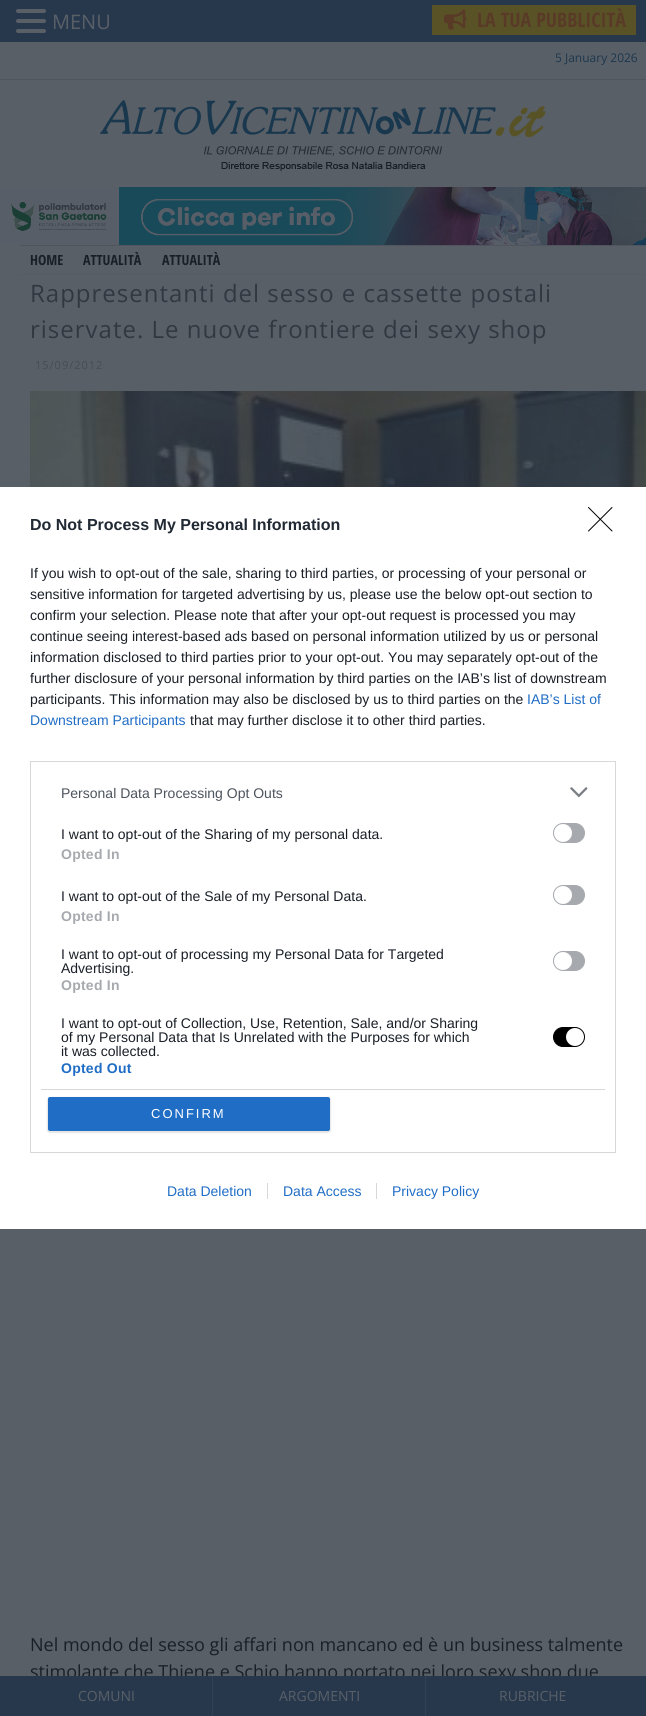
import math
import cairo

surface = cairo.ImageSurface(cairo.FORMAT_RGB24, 646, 1716)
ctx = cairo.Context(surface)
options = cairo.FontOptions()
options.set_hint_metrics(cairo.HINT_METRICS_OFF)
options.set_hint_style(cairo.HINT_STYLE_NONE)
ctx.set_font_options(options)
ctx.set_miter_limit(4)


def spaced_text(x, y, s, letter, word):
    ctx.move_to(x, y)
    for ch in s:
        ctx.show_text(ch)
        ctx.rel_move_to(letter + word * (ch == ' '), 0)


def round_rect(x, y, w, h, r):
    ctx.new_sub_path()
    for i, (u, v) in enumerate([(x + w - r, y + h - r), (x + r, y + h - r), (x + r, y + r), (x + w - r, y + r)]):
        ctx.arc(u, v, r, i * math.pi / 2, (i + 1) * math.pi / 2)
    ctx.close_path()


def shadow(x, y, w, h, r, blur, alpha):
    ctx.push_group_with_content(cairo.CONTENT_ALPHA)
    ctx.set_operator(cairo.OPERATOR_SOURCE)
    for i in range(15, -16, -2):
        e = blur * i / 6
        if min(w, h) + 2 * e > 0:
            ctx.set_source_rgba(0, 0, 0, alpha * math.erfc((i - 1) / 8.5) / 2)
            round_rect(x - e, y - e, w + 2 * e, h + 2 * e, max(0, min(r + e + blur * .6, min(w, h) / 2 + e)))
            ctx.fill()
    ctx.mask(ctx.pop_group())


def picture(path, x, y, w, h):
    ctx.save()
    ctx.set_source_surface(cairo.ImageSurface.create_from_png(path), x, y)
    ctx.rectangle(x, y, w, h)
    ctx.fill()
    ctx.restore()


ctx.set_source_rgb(0.349, 0.373, 0.404)
ctx.paint()
ctx.set_source_rgb(0.153, 0.22, 0.302)
ctx.rectangle(0, 0, 646, 42)
ctx.fill()
ctx.set_source_rgb(0.349, 0.373, 0.404)
round_rect(16, 9, 30, 4, 2)
ctx.fill()
round_rect(16, 19, 30, 4, 2)
ctx.fill()
round_rect(16, 29, 30, 4, 2)
ctx.fill()
ctx.select_font_face("Open Sans")
ctx.set_font_size(20)
ctx.move_to(52, 29)
ctx.show_text("MENU")
ctx.set_source_rgb(0.349, 0.322, 0.153)
ctx.rectangle(432, 5, 204, 30)
ctx.fill()
picture("img1.png", 444, 9, 23, 21)
ctx.select_font_face("Open Sans Condensed", cairo.FONT_SLANT_NORMAL, cairo.FONT_WEIGHT_BOLD)
ctx.set_source_rgb(0.349, 0.227, 0.153)
ctx.move_to(477, 27)
ctx.show_text("LA TUA PUBBLICITÀ")
ctx.set_source_rgb(0.31, 0.329, 0.365)
ctx.rectangle(0, 79, 646, 1)
ctx.fill()
ctx.select_font_face("Open Sans")
ctx.set_font_size(12)
ctx.set_source_rgb(0.11, 0.216, 0.306)
ctx.move_to(555, 62)
ctx.show_text("5 January 2026")
picture("img2.png", 100, 100, 446, 71)
picture("img3.png", 0, 187, 646, 58)
ctx.set_source_rgb(0.31, 0.329, 0.365)
ctx.rectangle(20, 245, 626, 1)
ctx.fill()
ctx.set_source_rgb(0.337, 0.361, 0.392)
ctx.rectangle(20, 274, 626, 1)
ctx.fill()
ctx.select_font_face("Open Sans Condensed", cairo.FONT_SLANT_NORMAL, cairo.FONT_WEIGHT_BOLD)
ctx.set_font_size(14)
ctx.set_source_rgb(0.098, 0.122, 0.153)
ctx.move_to(30, 265)
ctx.show_text("HOME")
ctx.move_to(83, 265)
ctx.show_text("ATTUALITÀ")
ctx.move_to(162, 265)
ctx.show_text("ATTUALITÀ")
ctx.select_font_face("Open Sans")
ctx.set_font_size(24)
ctx.set_source_rgb(0.196, 0.22, 0.255)
spaced_text(30, 302, "Rappresentanti del sesso e cassette postali", 1, 0)
spaced_text(30, 338, "riservate. Le nuove frontiere dei sexy shop", 1, 0)
ctx.set_font_size(11)
ctx.set_source_rgb(0.275, 0.298, 0.329)
spaced_text(35, 369, "15/09/2012", 1, 0)
picture("img4.png", 30, 391, 616, 96)
ctx.set_font_size(18)
ctx.set_source_rgb(0.098, 0.122, 0.153)
ctx.move_to(30, 1651)
ctx.show_text("Nel mondo del sesso gli affari non mancano ed è un business talmente")
ctx.move_to(30, 1678)
ctx.show_text("stimolante che Thiene e Schio hanno portato nei loro sexy shop due")
ctx.set_source_rgb(1, 1, 1)
ctx.rectangle(0, 487, 646, 742)
ctx.fill()
ctx.new_path()
ctx.move_to(588.5, 507.5)
ctx.line_to(612, 531)
ctx.move_to(612, 507.5)
ctx.line_to(588.5, 531)
ctx.set_source_rgb(0, 0, 0)
ctx.set_line_width(1)
ctx.set_line_cap(cairo.LINE_CAP_ROUND)
ctx.set_line_join(cairo.LINE_JOIN_ROUND)
ctx.stroke()
ctx.select_font_face("Liberation Sans", cairo.FONT_SLANT_NORMAL, cairo.FONT_WEIGHT_BOLD)
ctx.set_font_size(16)
ctx.set_source_rgb(0.129, 0.161, 0.204)
ctx.move_to(30, 530)
ctx.show_text("Do Not Process My Personal Information")
ctx.select_font_face("Liberation Sans")
ctx.set_font_size(14)
ctx.set_source_rgb(0.098, 0.122, 0.153)
ctx.move_to(30, 578)
ctx.show_text("If you wish to opt-out of the sale, sharing to third parties, or processing of your personal or")
ctx.move_to(30, 599)
ctx.show_text("sensitive information for targeted advertising by us, please use the below opt-out section to")
ctx.move_to(30, 620)
ctx.show_text("confirm your selection. Please note that after your opt-out request is processed you may")
ctx.move_to(30, 641)
ctx.show_text("continue seeing interest-based ads based on personal information utilized by us or personal")
ctx.move_to(30, 662)
ctx.show_text("information disclosed to third parties prior to your opt-out. You may separately opt-out of the")
ctx.move_to(30, 683)
ctx.show_text("further disclosure of your personal information by third parties on the IAB’s list of downstream")
ctx.move_to(30, 704)
ctx.show_text("participants. This information may also be disclosed by us to third parties on the")
ctx.set_source_rgb(0.125, 0.427, 0.773)
ctx.move_to(527, 704)
ctx.show_text("IAB’s List of")
ctx.move_to(30, 725)
ctx.show_text("Downstream Participants")
ctx.set_source_rgb(0.098, 0.122, 0.153)
ctx.move_to(190, 725)
ctx.show_text("that may further disclose it to other third parties.")
ctx.rectangle(30.5, 761.5, 585, 391)
ctx.set_source_rgb(0.847, 0.847, 0.847)
ctx.set_line_cap(cairo.LINE_CAP_BUTT)
ctx.set_line_join(cairo.LINE_JOIN_MITER)
ctx.stroke()
ctx.rectangle(41, 1089, 564, 1)
ctx.fill()
ctx.set_source_rgb(0.302, 0.329, 0.365)
ctx.move_to(61, 798)
ctx.show_text("Personal Data Processing Opt Outs")
picture("img5.png", 570, 787, 18, 11)
ctx.set_source_rgb(0.098, 0.122, 0.153)
ctx.move_to(61, 839)
ctx.show_text("I want to opt-out of the Sharing of my personal data.")
ctx.set_source_rgb(0.651, 0.663, 0.682)
round_rect(553.5, 823.5, 31, 19, 9.5)
ctx.fill_preserve()
ctx.stroke()
ctx.set_source_rgb(1, 1, 1)
ctx.arc(563, 833, 9, 0, 2 * math.pi)
ctx.fill()
ctx.select_font_face("Liberation Sans", cairo.FONT_SLANT_NORMAL, cairo.FONT_WEIGHT_BOLD)
ctx.set_source_rgb(0.651, 0.663, 0.682)
spaced_text(61, 859, "Opted In", 0.25, 0)
ctx.select_font_face("Liberation Sans")
ctx.set_source_rgb(0.098, 0.122, 0.153)
ctx.move_to(61, 901)
ctx.show_text("I want to opt-out of the Sale of my Personal Data.")
ctx.set_source_rgb(0.651, 0.663, 0.682)
round_rect(553.5, 885.5, 31, 19, 9.5)
ctx.fill_preserve()
ctx.stroke()
ctx.set_source_rgb(1, 1, 1)
ctx.arc(563, 895, 9, 0, 2 * math.pi)
ctx.fill()
ctx.select_font_face("Liberation Sans", cairo.FONT_SLANT_NORMAL, cairo.FONT_WEIGHT_BOLD)
ctx.set_source_rgb(0.651, 0.663, 0.682)
spaced_text(61, 921, "Opted In", 0.25, 0)
ctx.select_font_face("Liberation Sans")
ctx.set_source_rgb(0.098, 0.122, 0.153)
ctx.move_to(61, 959)
ctx.show_text("I want to opt-out of processing my Personal Data for Targeted")
ctx.move_to(61, 973)
ctx.show_text("Advertising.")
ctx.set_source_rgb(0.651, 0.663, 0.682)
round_rect(553.5, 951.5, 31, 19, 9.5)
ctx.fill_preserve()
ctx.stroke()
ctx.set_source_rgb(1, 1, 1)
ctx.arc(563, 961, 9, 0, 2 * math.pi)
ctx.fill()
ctx.select_font_face("Liberation Sans", cairo.FONT_SLANT_NORMAL, cairo.FONT_WEIGHT_BOLD)
ctx.set_source_rgb(0.651, 0.663, 0.682)
spaced_text(61, 990, "Opted In", 0.25, 0)
ctx.select_font_face("Liberation Sans")
ctx.set_source_rgb(0.098, 0.122, 0.153)
ctx.move_to(61, 1028)
ctx.show_text("I want to opt-out of Collection, Use, Retention, Sale, and/or Sharing")
ctx.move_to(61, 1042)
ctx.show_text("of my Personal Data that Is Unrelated with the Purposes for which")
ctx.move_to(61, 1056)
ctx.show_text("it was collected.")
ctx.set_source_rgb(0, 0, 0)
round_rect(553.5, 1027.5, 31, 19, 9.5)
ctx.fill_preserve()
ctx.stroke()
ctx.set_source_rgb(1, 1, 1)
ctx.arc(575, 1037, 9, 0, 2 * math.pi)
ctx.fill()
ctx.select_font_face("Liberation Sans", cairo.FONT_SLANT_NORMAL, cairo.FONT_WEIGHT_BOLD)
ctx.set_source_rgb(0.125, 0.427, 0.773)
spaced_text(61, 1073, "Opted Out", 0.25, 0)
ctx.set_source_rgb(0, 0, 0)
shadow(47, 1097, 284, 36, 3, 0.5, 0.1)
ctx.set_source_rgb(0.125, 0.427, 0.773)
round_rect(48, 1097, 282, 34, 2)
ctx.fill()
ctx.select_font_face("Liberation Sans")
ctx.set_font_size(13)
ctx.set_source_rgb(1, 1, 1)
spaced_text(151, 1118, "CONFIRM", 2, 0)
ctx.set_font_size(14)
ctx.set_source_rgb(0.125, 0.427, 0.773)
ctx.move_to(167, 1196)
ctx.show_text("Data Deletion")
ctx.move_to(283, 1196)
ctx.show_text("Data Access")
ctx.set_source_rgb(0.847, 0.847, 0.847)
ctx.rectangle(267, 1183, 1, 16)
ctx.fill()
ctx.set_source_rgb(0.125, 0.427, 0.773)
ctx.move_to(392, 1196)
ctx.show_text("Privacy Policy")
ctx.set_source_rgb(0.847, 0.847, 0.847)
ctx.rectangle(376, 1183, 1, 16)
ctx.fill()
ctx.set_source_rgb(0.153, 0.22, 0.302)
ctx.rectangle(0, 1676, 646, 40)
ctx.fill()
ctx.set_source_rgb(0.196, 0.255, 0.325)
ctx.rectangle(212, 1676, 1, 40)
ctx.fill()
ctx.select_font_face("Open Sans")
ctx.set_source_rgb(0.349, 0.373, 0.404)
ctx.move_to(78, 1701)
ctx.show_text("COMUNI")
ctx.set_source_rgb(0.196, 0.255, 0.325)
ctx.rectangle(425, 1676, 1, 40)
ctx.fill()
ctx.set_source_rgb(0.349, 0.373, 0.404)
ctx.move_to(279, 1701)
ctx.show_text("ARGOMENTI")
ctx.move_to(499, 1701)
ctx.show_text("RUBRICHE")
surface.write_to_png("page.png")
